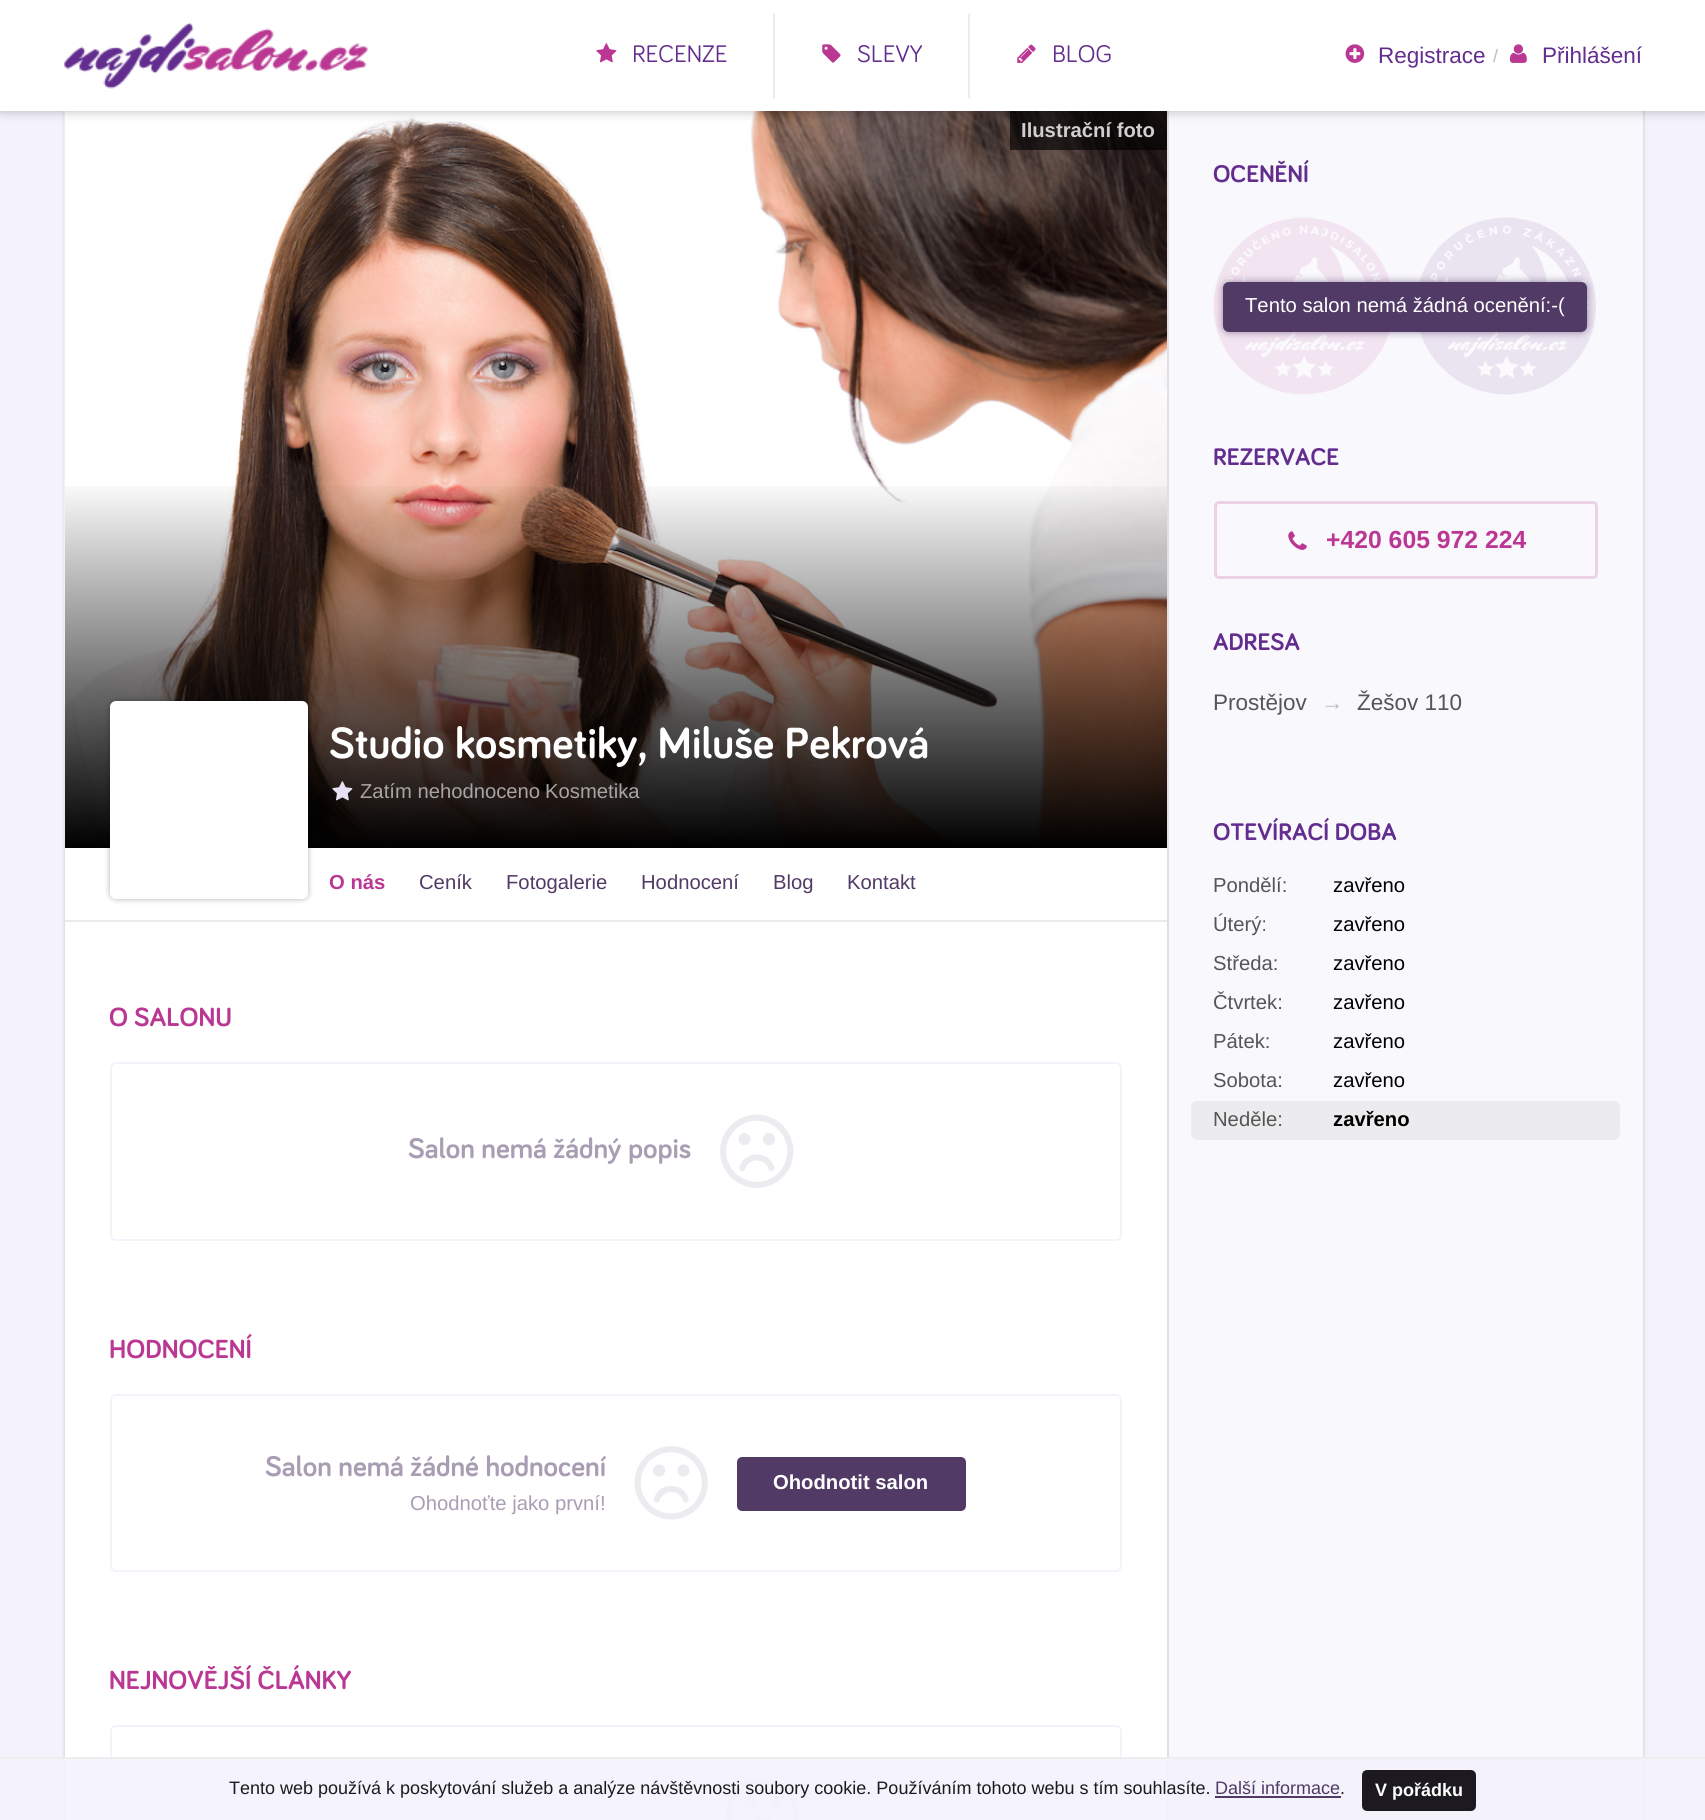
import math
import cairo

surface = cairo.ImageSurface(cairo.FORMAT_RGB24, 1705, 1820)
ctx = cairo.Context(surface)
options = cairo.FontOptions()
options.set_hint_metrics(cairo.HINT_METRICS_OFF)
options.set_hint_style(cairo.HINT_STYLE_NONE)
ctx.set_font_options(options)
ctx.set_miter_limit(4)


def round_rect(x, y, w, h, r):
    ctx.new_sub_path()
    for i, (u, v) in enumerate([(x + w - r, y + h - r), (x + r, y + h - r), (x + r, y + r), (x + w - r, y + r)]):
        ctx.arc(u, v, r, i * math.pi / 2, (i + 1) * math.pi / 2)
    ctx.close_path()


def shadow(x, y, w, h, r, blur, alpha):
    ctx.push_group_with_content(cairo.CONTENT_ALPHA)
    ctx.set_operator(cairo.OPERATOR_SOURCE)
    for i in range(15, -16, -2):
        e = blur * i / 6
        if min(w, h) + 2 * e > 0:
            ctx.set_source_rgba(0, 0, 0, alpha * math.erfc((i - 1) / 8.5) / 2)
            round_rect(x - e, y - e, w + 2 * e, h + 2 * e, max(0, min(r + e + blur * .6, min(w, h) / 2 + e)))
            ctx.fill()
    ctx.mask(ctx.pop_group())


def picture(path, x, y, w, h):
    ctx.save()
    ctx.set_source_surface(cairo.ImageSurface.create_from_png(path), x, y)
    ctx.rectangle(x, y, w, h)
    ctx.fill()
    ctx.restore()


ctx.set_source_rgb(0.957, 0.949, 0.984)
ctx.paint()
ctx.set_source_rgb(0, 0, 0)
shadow(65, 111, 1578, 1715, 0, 2, 0.2)
ctx.set_source_rgb(0.878, 0.875, 0.91)
ctx.rectangle(1167, 111, 2, 1709)
ctx.fill()
picture("img7.png", 64, 111, 1103, 737)
ctx.set_source_rgba(0, 0, 0, 0.64)
ctx.rectangle(1010, 111, 157, 39)
ctx.fill()
ctx.set_source_rgb(0.973, 0.969, 0.988)
ctx.rectangle(1169, 111, 474, 1709)
ctx.fill()
ctx.set_source_rgb(0, 0, 0)
shadow(0, 2, 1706, 111, 0, 5, 0.2)
ctx.set_source_rgb(1, 1, 1)
ctx.rectangle(0, 0, 1705, 111)
ctx.fill()
picture("img1.png", 64, 22, 304, 67)
picture("img2.png", 596, 43, 21, 20)
ctx.select_font_face("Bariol")
ctx.set_font_size(24.75)
ctx.set_source_rgb(0.384, 0.176, 0.557)
ctx.move_to(632, 62)
ctx.show_text("RECENZE")
ctx.set_source_rgb(0.918, 0.918, 0.918)
ctx.rectangle(773, 14, 2, 84)
ctx.fill()
picture("img3.png", 822, 44, 19, 19)
ctx.set_source_rgb(0.384, 0.176, 0.557)
ctx.move_to(857, 62)
ctx.show_text("SLEVY")
ctx.set_source_rgb(0.918, 0.918, 0.918)
ctx.rectangle(968, 14, 2, 84)
ctx.fill()
picture("img4.png", 1017, 44, 19, 19)
ctx.set_source_rgb(0.384, 0.176, 0.557)
ctx.move_to(1052, 62)
ctx.show_text("BLOG")
picture("img5.png", 1345, 44, 20, 19)
ctx.select_font_face("Liberation Sans")
ctx.set_font_size(22.5)
ctx.move_to(1378, 63)
ctx.show_text("Registrace")
ctx.set_font_size(18)
ctx.set_source_rgb(0.741, 0.729, 0.761)
ctx.move_to(1493, 62)
ctx.show_text("/")
picture("img6.png", 1509, 44, 18, 19)
ctx.set_font_size(22.5)
ctx.set_source_rgb(0.384, 0.176, 0.557)
ctx.move_to(1542, 63)
ctx.show_text("Přihlášení")
ctx.set_source_rgb(1, 1, 1)
ctx.rectangle(65, 848, 1102, 972)
ctx.fill()
ctx.select_font_face("Liberation Sans", cairo.FONT_SLANT_NORMAL, cairo.FONT_WEIGHT_BOLD)
ctx.set_font_size(20.25)
ctx.set_source_rgb(0.816, 0.812, 0.812)
ctx.move_to(1021, 137)
ctx.show_text("Ilustrační foto")
gradient = cairo.LinearGradient(616, 478, 616, 848)
gradient.add_color_stop_rgba(0, 0, 0, 0, 0)
gradient.add_color_stop_rgba(1, 0, 0, 0, 1)
ctx.set_source(gradient)
ctx.rectangle(65, 486, 1102, 362)
ctx.fill()
ctx.set_source_rgb(0, 0, 0)
shadow(110, 701, 198, 198, 6, 3, 0.3)
ctx.set_source_rgb(1, 1, 1)
round_rect(110, 701, 198, 198, 6)
ctx.fill()
ctx.select_font_face("Bariol", cairo.FONT_SLANT_NORMAL, cairo.FONT_WEIGHT_BOLD)
ctx.set_font_size(45)
ctx.move_to(329, 758)
ctx.show_text("Studio kosmetiky, Miluše Pekrová")
picture("img8.png", 332, 781, 21, 20)
ctx.select_font_face("Liberation Sans")
ctx.set_font_size(20.25)
ctx.set_source_rgb(0.655, 0.643, 0.639)
ctx.move_to(360, 798)
ctx.show_text("Zatím nehodnoceno")
ctx.move_to(545, 798)
ctx.show_text("Kosmetika")
ctx.set_source_rgb(0.918, 0.918, 0.918)
ctx.rectangle(65, 920, 1102, 2)
ctx.fill()
ctx.select_font_face("Liberation Sans", cairo.FONT_SLANT_NORMAL, cairo.FONT_WEIGHT_BOLD)
ctx.set_source_rgb(0.729, 0.216, 0.576)
ctx.move_to(329, 889)
ctx.show_text("O nás")
ctx.select_font_face("Liberation Sans")
ctx.set_source_rgb(0.322, 0.227, 0.4)
ctx.move_to(419, 889)
ctx.show_text("Ceník")
ctx.move_to(506, 889)
ctx.show_text("Fotogalerie")
ctx.move_to(641, 889)
ctx.show_text("Hodnocení")
ctx.move_to(773, 889)
ctx.show_text("Blog")
ctx.move_to(847, 889)
ctx.show_text("Kontakt")
ctx.select_font_face("Bariol", cairo.FONT_SLANT_NORMAL, cairo.FONT_WEIGHT_BOLD)
ctx.set_font_size(27)
ctx.set_source_rgb(0.729, 0.216, 0.576)
ctx.move_to(109, 1026)
ctx.show_text("O SALONU")
round_rect(111, 1063, 1010, 177, 5)
ctx.set_source_rgb(0.957, 0.949, 0.984)
ctx.stroke()
ctx.set_font_size(29.25)
ctx.set_source_rgb(0.663, 0.616, 0.702)
ctx.move_to(408, 1158)
ctx.show_text("Salon nemá žádný popis")
picture("img9.png", 720, 1114, 74, 74)
ctx.set_font_size(27)
ctx.set_source_rgb(0.729, 0.216, 0.576)
ctx.move_to(109, 1358)
ctx.show_text("HODNOCENÍ")
round_rect(111, 1395, 1010, 176, 5)
ctx.set_source_rgb(0.957, 0.949, 0.984)
ctx.stroke()
ctx.set_font_size(29.25)
ctx.set_source_rgb(0.663, 0.616, 0.702)
ctx.move_to(265, 1476)
ctx.show_text("Salon nemá žádné hodnocení")
ctx.select_font_face("Liberation Sans")
ctx.set_font_size(20.25)
ctx.move_to(410, 1510)
ctx.show_text("Ohodnoťte jako první!")
picture("img10.png", 634, 1446, 74, 74)
ctx.set_source_rgb(0.322, 0.227, 0.4)
round_rect(738.5, 1458.5, 226, 51, 3.5)
ctx.fill_preserve()
ctx.set_line_width(3)
ctx.stroke()
ctx.select_font_face("Liberation Sans", cairo.FONT_SLANT_NORMAL, cairo.FONT_WEIGHT_BOLD)
ctx.set_source_rgb(1, 1, 1)
ctx.move_to(773, 1489)
ctx.show_text("Ohodnotit salon")
ctx.select_font_face("Bariol", cairo.FONT_SLANT_NORMAL, cairo.FONT_WEIGHT_BOLD)
ctx.set_font_size(27)
ctx.set_source_rgb(0.729, 0.216, 0.576)
ctx.move_to(109, 1689)
ctx.show_text("NEJNOVĚJŠÍ ČLÁNKY")
round_rect(111, 1726, 1010, 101, 5)
ctx.set_source_rgb(0.957, 0.949, 0.984)
ctx.set_line_width(2)
ctx.stroke()
picture("img11.png", 726, 1777, 74, 43)
ctx.set_font_size(24.75)
ctx.set_source_rgb(0.384, 0.176, 0.557)
ctx.move_to(1213, 182)
ctx.show_text("OCENĚNÍ")
picture("img12.png", 1213, 217, 177, 178)
picture("img13.png", 1419, 217, 177, 178)
ctx.set_source_rgb(0.322, 0.227, 0.4)
shadow(1223, 282, 364, 50, 6, 4, 0.6)
ctx.set_source_rgb(0.322, 0.227, 0.4)
round_rect(1223, 282, 364, 50, 6)
ctx.fill()
ctx.select_font_face("Liberation Sans")
ctx.set_font_size(20.25)
ctx.set_source_rgb(1, 1, 1)
ctx.move_to(1245, 312)
ctx.show_text("Tento salon nemá žádná ocenění:-(")
ctx.select_font_face("Bariol", cairo.FONT_SLANT_NORMAL, cairo.FONT_WEIGHT_BOLD)
ctx.set_font_size(24.75)
ctx.set_source_rgb(0.384, 0.176, 0.557)
ctx.move_to(1213, 465)
ctx.show_text("REZERVACE")
round_rect(1215.5, 502.5, 381, 75, 3.5)
ctx.set_source_rgb(0.925, 0.82, 0.906)
ctx.set_line_width(3)
ctx.stroke()
picture("img14.png", 1288, 531, 19, 19)
ctx.select_font_face("Liberation Sans", cairo.FONT_SLANT_NORMAL, cairo.FONT_WEIGHT_BOLD)
ctx.set_source_rgb(0.729, 0.216, 0.576)
ctx.move_to(1326, 548)
ctx.show_text("+420 605 972 224")
ctx.select_font_face("Bariol", cairo.FONT_SLANT_NORMAL, cairo.FONT_WEIGHT_BOLD)
ctx.set_source_rgb(0.384, 0.176, 0.557)
ctx.move_to(1213, 650)
ctx.show_text("ADRESA")
ctx.select_font_face("Liberation Sans")
ctx.set_font_size(22.5)
ctx.set_source_rgb(0.333, 0.333, 0.333)
ctx.move_to(1213, 710)
ctx.show_text("Prostějov")
ctx.set_source_rgb(0.741, 0.729, 0.761)
ctx.move_to(1321, 710)
ctx.show_text("→")
ctx.set_source_rgb(0.333, 0.333, 0.333)
ctx.move_to(1357, 710)
ctx.show_text("Žešov 110")
ctx.select_font_face("Bariol", cairo.FONT_SLANT_NORMAL, cairo.FONT_WEIGHT_BOLD)
ctx.set_font_size(24.75)
ctx.set_source_rgb(0.384, 0.176, 0.557)
ctx.move_to(1213, 840)
ctx.show_text("OTEVÍRACÍ DOBA")
ctx.select_font_face("Liberation Sans")
ctx.set_font_size(20.25)
ctx.set_source_rgb(0.333, 0.333, 0.333)
ctx.move_to(1213, 892)
ctx.show_text("Pondělí:")
ctx.set_source_rgb(0, 0, 0)
ctx.move_to(1333, 892)
ctx.show_text("zavřeno")
ctx.set_source_rgb(0.333, 0.333, 0.333)
ctx.move_to(1213, 931)
ctx.show_text("Úterý:")
ctx.set_source_rgb(0, 0, 0)
ctx.move_to(1333, 931)
ctx.show_text("zavřeno")
ctx.set_source_rgb(0.333, 0.333, 0.333)
ctx.move_to(1213, 970)
ctx.show_text("Středa:")
ctx.set_source_rgb(0, 0, 0)
ctx.move_to(1333, 970)
ctx.show_text("zavřeno")
ctx.set_source_rgb(0.333, 0.333, 0.333)
ctx.move_to(1213, 1009)
ctx.show_text("Čtvrtek:")
ctx.set_source_rgb(0, 0, 0)
ctx.move_to(1333, 1009)
ctx.show_text("zavřeno")
ctx.set_source_rgb(0.333, 0.333, 0.333)
ctx.move_to(1213, 1048)
ctx.show_text("Pátek:")
ctx.set_source_rgb(0, 0, 0)
ctx.move_to(1333, 1048)
ctx.show_text("zavřeno")
ctx.set_source_rgb(0.333, 0.333, 0.333)
ctx.move_to(1213, 1087)
ctx.show_text("Sobota:")
ctx.set_source_rgb(0, 0, 0)
ctx.move_to(1333, 1087)
ctx.show_text("zavřeno")
ctx.set_source_rgb(0.925, 0.922, 0.937)
round_rect(1191, 1101, 429, 39, 6)
ctx.fill()
ctx.set_source_rgb(0.333, 0.333, 0.333)
ctx.move_to(1213, 1126)
ctx.show_text("Neděle:")
ctx.select_font_face("Liberation Sans", cairo.FONT_SLANT_NORMAL, cairo.FONT_WEIGHT_BOLD)
ctx.set_source_rgb(0, 0, 0)
ctx.move_to(1333, 1126)
ctx.show_text("zavřeno")
ctx.set_source_rgba(0.957, 0.949, 0.984, 0.9)
ctx.rectangle(62, 1759, 1584, 61)
ctx.fill()
ctx.set_source_rgb(0.933, 0.933, 0.933)
ctx.rectangle(0, 1757, 1705, 2)
ctx.fill()
ctx.select_font_face("Liberation Sans")
ctx.set_font_size(18)
ctx.set_source_rgb(0.11, 0.102, 0.125)
ctx.move_to(229, 1794)
ctx.show_text("Tento web používá k poskytování služeb a analýze návštěvnosti soubory cookie. Používáním tohoto webu s tím souhlasíte.")
ctx.set_source_rgb(0.322, 0.227, 0.4)
ctx.move_to(1215, 1794)
ctx.show_text("Další informace")
ctx.rectangle(1215, 1796, 126, 2)
ctx.fill()
ctx.set_source_rgb(0.11, 0.102, 0.125)
ctx.move_to(1340, 1794)
ctx.show_text(".")
round_rect(1363.5, 1771.5, 111, 38, 3.5)
ctx.fill_preserve()
ctx.stroke()
ctx.select_font_face("Liberation Sans", cairo.FONT_SLANT_NORMAL, cairo.FONT_WEIGHT_BOLD)
ctx.set_source_rgb(1, 1, 1)
ctx.move_to(1375, 1796)
ctx.show_text("V pořádku")
surface.write_to_png("page.png")
